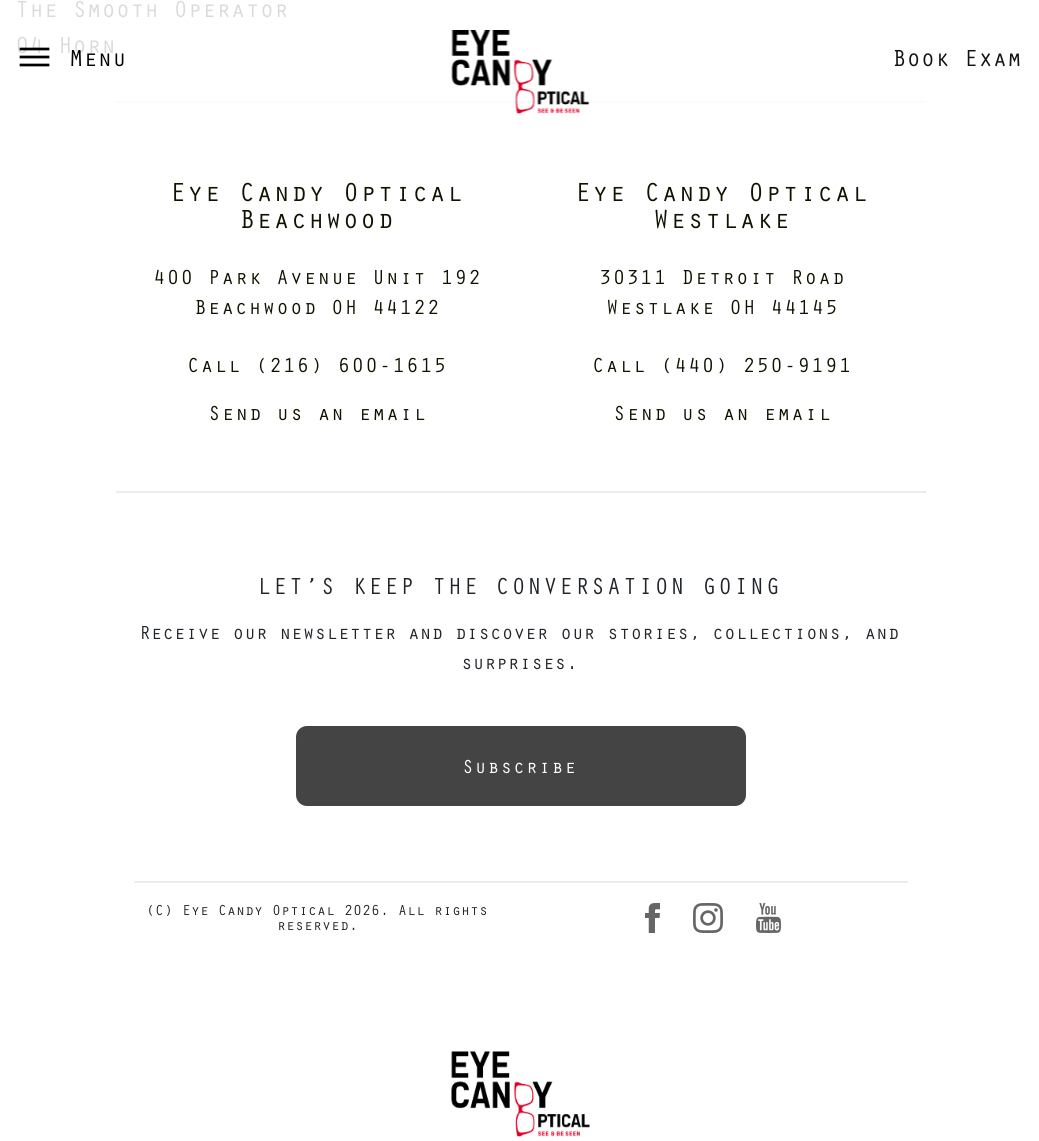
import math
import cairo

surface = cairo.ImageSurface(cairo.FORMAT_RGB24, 1039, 1141)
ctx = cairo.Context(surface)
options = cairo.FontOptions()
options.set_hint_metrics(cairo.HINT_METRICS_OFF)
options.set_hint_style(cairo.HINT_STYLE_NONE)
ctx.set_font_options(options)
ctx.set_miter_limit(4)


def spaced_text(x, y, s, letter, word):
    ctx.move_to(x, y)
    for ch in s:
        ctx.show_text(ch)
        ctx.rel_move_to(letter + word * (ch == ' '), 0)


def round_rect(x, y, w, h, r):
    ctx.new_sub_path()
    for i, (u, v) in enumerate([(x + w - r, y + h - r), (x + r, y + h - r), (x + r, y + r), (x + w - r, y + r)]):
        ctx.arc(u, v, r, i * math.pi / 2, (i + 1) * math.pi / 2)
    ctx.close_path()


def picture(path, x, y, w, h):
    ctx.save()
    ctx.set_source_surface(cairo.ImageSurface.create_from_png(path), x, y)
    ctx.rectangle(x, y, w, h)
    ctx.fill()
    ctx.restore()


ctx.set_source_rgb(1, 1, 1)
ctx.paint()
ctx.select_font_face("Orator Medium")
ctx.set_font_size(24)
ctx.set_source_rgb(0.855, 0.855, 0.855)
ctx.move_to(15, 17)
ctx.show_text("The Smooth Operator")
ctx.move_to(15, 53)
ctx.show_text("04 Horn")
ctx.new_path()
ctx.move_to(48, 49)
ctx.line_to(21, 49)
ctx.move_to(48, 57)
ctx.line_to(21, 57)
ctx.move_to(48, 65)
ctx.line_to(21, 65)
ctx.set_source_rgb(0, 0, 0)
ctx.set_line_width(2.7)
ctx.set_line_cap(cairo.LINE_CAP_SQUARE)
ctx.stroke()
ctx.move_to(69, 66)
ctx.show_text("Menu")
ctx.set_source_rgb(0.984, 0.984, 0.984)
ctx.rectangle(116, 101, 810, 2)
ctx.fill()
picture("img1.png", 451, 30, 139, 84)
ctx.set_source_rgb(0.067, 0.067, 0.067)
ctx.move_to(892, 66)
ctx.show_text("Book Exam")
ctx.set_source_rgb(0.922, 0.922, 0.922)
ctx.rectangle(116, 491, 810, 2)
ctx.fill()
ctx.set_font_size(27)
ctx.set_source_rgb(0.067, 0.067, 0)
spaced_text(170, 201, "Eye Candy Optical", 1.1, 0)
spaced_text(239, 228, "Beachwood", 1.1, 0)
ctx.set_font_size(21)
spaced_text(153, 284, "400 Park Avenue Unit 192", 1.1, 0)
spaced_text(194, 314, "Beachwood OH 44122", 1.1, 0)
spaced_text(187, 372, "Call (216) 600-1615", 1.1, 0)
spaced_text(208, 420, "Send us an email", 1.1, 0)
ctx.set_font_size(27)
spaced_text(575, 201, "Eye Candy Optical", 1.1, 0)
spaced_text(653, 228, "Westlake", 1.1, 0)
ctx.set_font_size(21)
spaced_text(599, 284, "30311 Detroit Road", 1.1, 0)
spaced_text(606, 314, "Westlake OH 44145", 1.1, 0)
spaced_text(592, 372, "Call (440) 250-9191", 1.1, 0)
spaced_text(613, 420, "Send us an email", 1.1, 0)
ctx.set_source_rgb(0.922, 0.922, 0.922)
ctx.rectangle(134, 881, 774, 2)
ctx.fill()
ctx.set_font_size(24)
ctx.set_source_rgb(0.129, 0.145, 0.161)
spaced_text(257, 594, "LET’S KEEP THE CONVERSATION GOING", 1.5, 0)
ctx.set_font_size(19.5)
ctx.move_to(139, 639)
ctx.show_text("Receive our newsletter and discover our stories, collections, and")
ctx.move_to(461, 669)
ctx.show_text("surprises.")
ctx.set_source_rgb(0.267, 0.267, 0.267)
round_rect(296, 726, 450, 80, 11)
ctx.fill()
ctx.set_source_rgb(1, 1, 1)
spaced_text(462, 773, "Subscribe", 1.1, 0)
ctx.set_font_size(15)
ctx.set_source_rgb(0.129, 0.145, 0.161)
ctx.move_to(146, 915)
ctx.show_text("(C) Eye Candy Optical 2026. All rights")
ctx.move_to(277, 930)
ctx.show_text("reserved.")
picture("img2.png", 645, 903, 15, 30)
picture("img3.png", 693, 903, 30, 30)
picture("img4.png", 756, 903, 25, 30)
picture("img5.png", 451, 1051, 139, 86)
surface.write_to_png("page.png")
